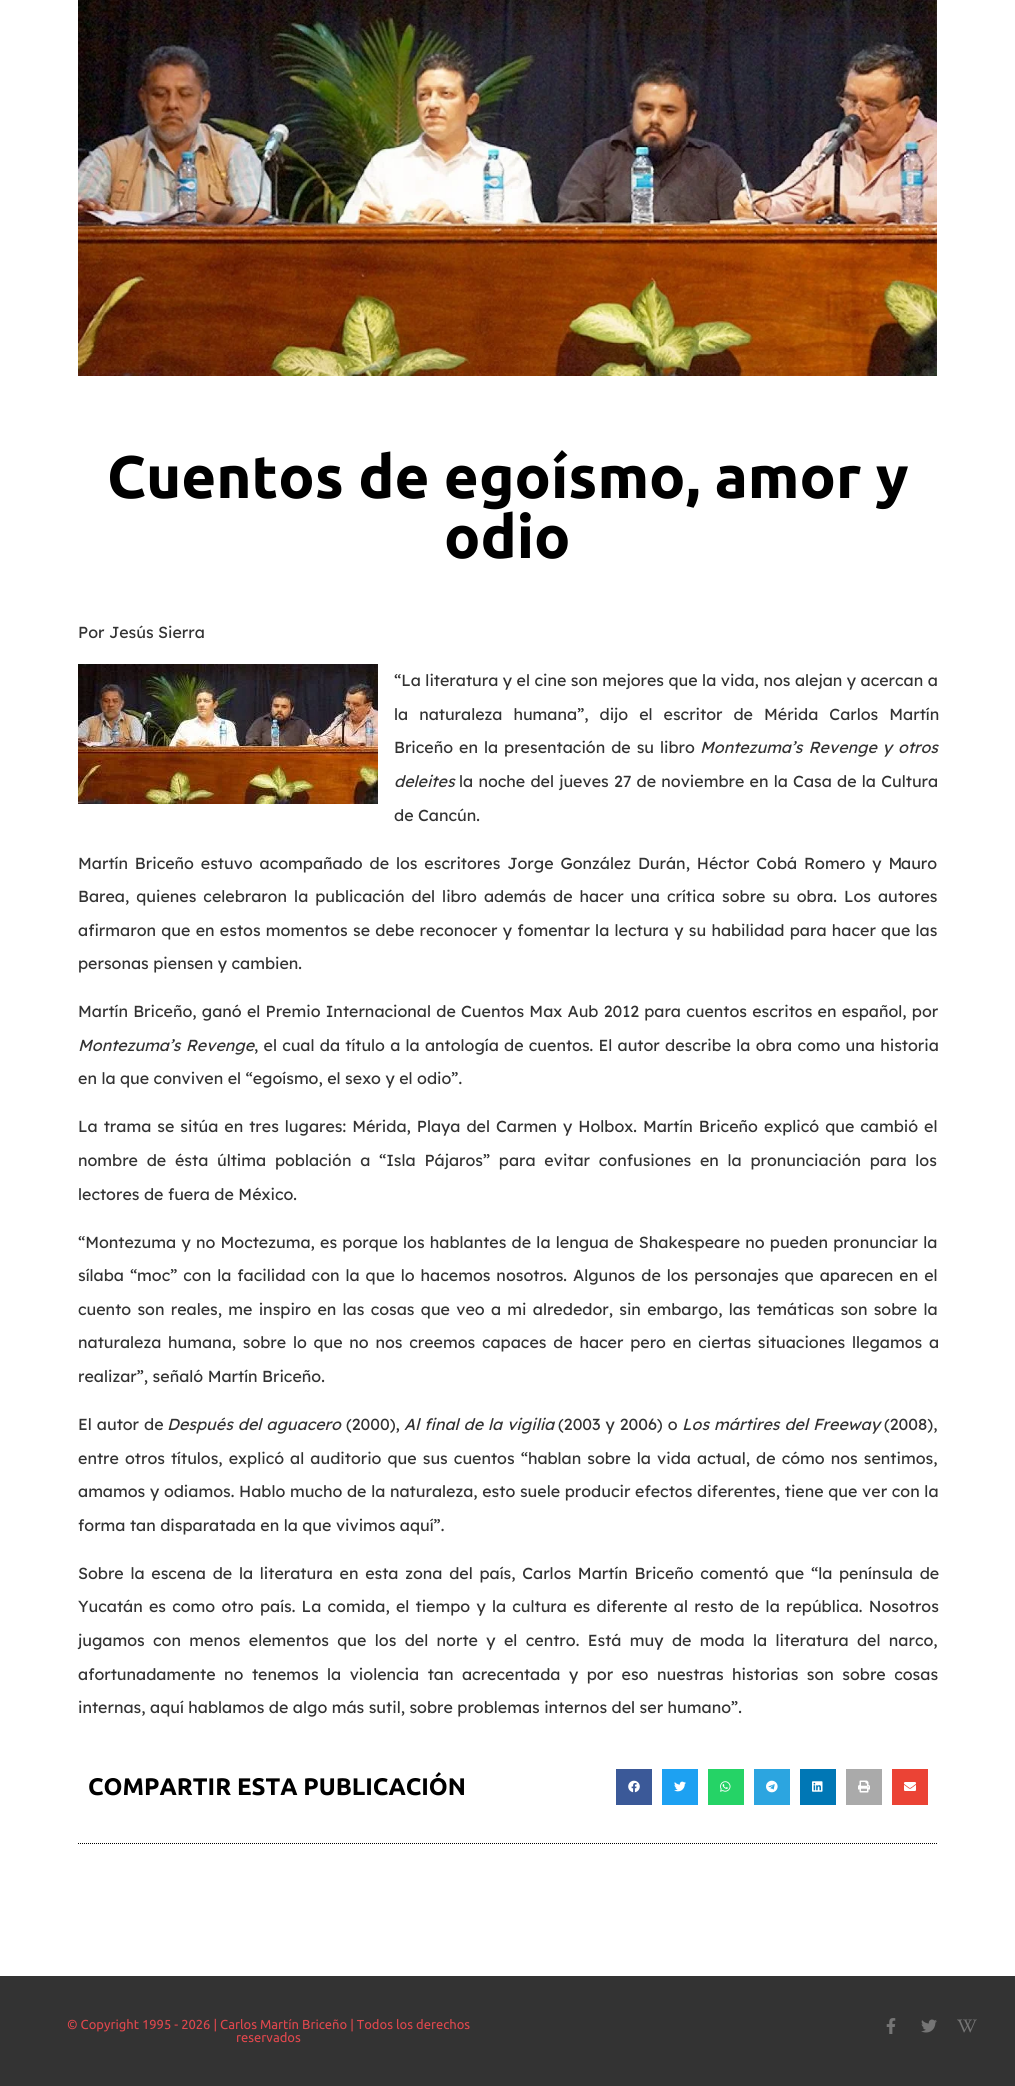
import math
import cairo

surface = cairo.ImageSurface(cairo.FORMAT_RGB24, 1015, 2086)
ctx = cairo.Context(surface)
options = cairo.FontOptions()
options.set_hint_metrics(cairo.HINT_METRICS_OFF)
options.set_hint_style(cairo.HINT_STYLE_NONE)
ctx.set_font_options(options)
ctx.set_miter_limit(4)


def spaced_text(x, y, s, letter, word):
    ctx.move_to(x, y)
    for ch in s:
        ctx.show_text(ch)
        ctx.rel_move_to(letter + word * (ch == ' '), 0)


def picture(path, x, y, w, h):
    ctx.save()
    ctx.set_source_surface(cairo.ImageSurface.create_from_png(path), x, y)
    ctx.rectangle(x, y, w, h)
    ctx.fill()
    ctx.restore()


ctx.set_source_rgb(1, 1, 1)
ctx.paint()
picture("img1.png", 78, 0, 859, 376)
ctx.select_font_face("Ubuntu", cairo.FONT_SLANT_NORMAL, cairo.FONT_WEIGHT_BOLD)
ctx.set_font_size(60)
ctx.set_source_rgb(0, 0, 0)
ctx.move_to(107, 498)
ctx.show_text("Cuentos de egoísmo, amor y")
ctx.move_to(444, 558)
ctx.show_text("odio")
ctx.select_font_face("Lexend Deca")
ctx.set_font_size(16)
ctx.set_source_rgb(0.2, 0.2, 0.2)
ctx.move_to(78, 638)
ctx.show_text("Por Jesús Sierra")
picture("img2.png", 78, 664, 300, 140)
ctx.move_to(394, 686)
ctx.show_text("“La literatura y el cine son mejores que la vida, nos alejan y acercan a")
spaced_text(394, 720, "la naturaleza humana”, dijo el escritor de Mérida Carlos Martín", 0, 6.5)
spaced_text(394, 753, "Briceño en la presentación de su libro", 0, 1.5)
ctx.select_font_face("Lexend Deca", cairo.FONT_SLANT_ITALIC)
spaced_text(700, 753, "Montezuma’s Revenge y otros", 0, 1.5)
ctx.move_to(394, 787)
ctx.show_text("deleites")
ctx.select_font_face("Lexend Deca")
spaced_text(459, 787, "la noche del jueves 27 de noviembre en la Casa de la Cultura", 0, 0.75)
ctx.move_to(394, 821)
ctx.show_text("de Cancún.")
spaced_text(78, 869, "Martín Briceño estuvo acompañado de los escritores Jorge González Durán, Héctor Cobá Romero y M", 0, 2.4)
ctx.move_to(901, 869)
ctx.show_text("auro")
spaced_text(78, 902, "Barea, quienes celebraron la publicación del libro además de hacer una crítica sobre su obra. Los au", 0, 2.5)
ctx.move_to(898, 902)
ctx.show_text("tores")
spaced_text(78, 936, "afirmaron que en estos momentos se debe reconocer y fomentar la lectura y su habilidad para hacer que las", 0, 0.8)
ctx.move_to(78, 969)
ctx.show_text("personas piensen y cambien.")
spaced_text(78, 1017, "Martín Briceño, ganó el Premio Internacional de Cuentos Max Aub 2012 para cuentos escritos en español, por", 0, 0.75)
ctx.select_font_face("Lexend Deca", cairo.FONT_SLANT_ITALIC)
spaced_text(78, 1051, "Montezuma’s Revenge", 0, 0.75)
ctx.select_font_face("Lexend Deca")
spaced_text(254, 1051, ", el cual da título a la antología de cuentos. El autor describe la obra como una historia", 0, 0.75)
ctx.move_to(78, 1084)
ctx.show_text("en la que conviven el “egoísmo, el sexo y el odio”.")
spaced_text(78, 1132, "La trama se sitúa en tres lugares: Mérida, Playa del Carmen y Holbox. Martín Briceño explicó que cambió el", 0, 1.5)
spaced_text(78, 1166, "nombre de ésta última población a “Isla Pájaros” para evitar confusiones en la pronunciación para los", 0, 4.25)
ctx.move_to(78, 1200)
ctx.show_text("lectores de fuera de México.")
spaced_text(78, 1248, "“Montezuma y no Moctezuma, es porque los hablantes de la lengua de Shakespeare no pueden pronunciar la", 0, 0.75)
spaced_text(78, 1281, "sílaba “moc” con la facilidad con la que lo hacemos nosotros. Algunos de los personajes que aparecen en el", 0, 1.5)
spaced_text(78, 1315, "cuento son reales, me inspiro en las cosas que veo a mi alrededor, sin embargo, las temáticas son sobre la", 0, 1.8)
spaced_text(78, 1348, "naturaleza humana, sobre lo que no nos creemos capaces de hacer pero en ciertas situaciones llegamos a", 0, 2.25)
ctx.move_to(78, 1382)
ctx.show_text("realizar”, señaló Martín Briceño.")
spaced_text(78, 1430, "El autor de", 0, 0.5)
ctx.select_font_face("Lexend Deca", cairo.FONT_SLANT_ITALIC)
spaced_text(167, 1430, "Después del aguacero", 0, 0.5)
ctx.select_font_face("Lexend Deca")
ctx.move_to(346, 1430)
ctx.show_text("(2000),")
ctx.select_font_face("Lexend Deca", cairo.FONT_SLANT_ITALIC)
spaced_text(404, 1430, "Al final de la vigilia", 0, 0.5)
ctx.select_font_face("Lexend Deca")
spaced_text(558, 1430, "(2003 y 2006) o", 0, 0.5)
ctx.select_font_face("Lexend Deca", cairo.FONT_SLANT_ITALIC)
spaced_text(682, 1430, "Los mártires del Freeway", 0, 0.5)
ctx.select_font_face("Lexend Deca")
ctx.move_to(884, 1430)
ctx.show_text("(2008),")
spaced_text(78, 1464, "entre otros títulos, explicó al auditorio que sus cuentos “hablan sobre la vida actual, de cómo nos sentimos,", 0, 1.6)
spaced_text(78, 1497, "amamos y odiamos. Hablo mucho de la naturaleza, esto suele producir efectos diferentes, tiene que ver con la", 0, 0.2)
ctx.move_to(78, 1531)
ctx.show_text("forma tan disparatada en la que vivimos aquí”.")
spaced_text(78, 1579, "Sobre la escena de la literatura en esta zona del país, Carlos Martín Briceño comentó que “la península de", 0, 2.25)
spaced_text(78, 1612, "Yucatán es como otro país. La comida, el tiempo y la cultura es diferente al resto de la república. Nosotros", 0, 1.75)
spaced_text(78, 1646, "jugamos con menos elementos que los del norte y el centro. Está muy de moda la literatura del narco,", 0, 3.9)
spaced_text(78, 1680, "afortunadamente no tenemos la violencia tan acrecentada y por eso nuestras historias son sobre cosas", 0, 4)
ctx.move_to(78, 1713)
ctx.show_text("internas, aquí hablamos de algo más sutil, sobre problemas internos del ser humano”.")
ctx.select_font_face("Ubuntu", cairo.FONT_SLANT_NORMAL, cairo.FONT_WEIGHT_BOLD)
ctx.set_font_size(24)
ctx.set_source_rgb(0, 0, 0)
ctx.move_to(88, 1795)
ctx.show_text("COMPARTIR ESTA PUBLICACIÓN")
ctx.set_source_rgb(0.231, 0.349, 0.596)
ctx.rectangle(616, 1769, 36, 36)
ctx.fill()
picture("img3.png", 628, 1780, 12, 13)
ctx.set_source_rgb(0.114, 0.631, 0.949)
ctx.rectangle(662, 1769, 36, 36)
ctx.fill()
picture("img4.png", 674, 1781, 12, 11)
ctx.set_source_rgb(0.145, 0.827, 0.4)
ctx.rectangle(708, 1769, 36, 36)
ctx.fill()
picture("img5.png", 720, 1781, 11, 11)
ctx.set_source_rgb(0.173, 0.647, 0.878)
ctx.rectangle(754, 1769, 36, 36)
ctx.fill()
picture("img6.png", 766, 1780, 12, 13)
ctx.set_source_rgb(0, 0.467, 0.71)
ctx.rectangle(800, 1769, 36, 36)
ctx.fill()
picture("img7.png", 812, 1781, 11, 11)
ctx.set_source_rgb(0.667, 0.667, 0.667)
ctx.rectangle(846, 1769, 36, 36)
ctx.fill()
picture("img8.png", 858, 1780, 12, 13)
ctx.set_source_rgb(0.918, 0.263, 0.208)
ctx.rectangle(892, 1769, 36, 36)
ctx.fill()
picture("img9.png", 904, 1782, 12, 9)
ctx.new_path()
ctx.move_to(78, 1843.5)
ctx.line_to(938, 1843.5)
ctx.set_source_rgb(0, 0, 0)
ctx.set_line_width(1)
ctx.set_dash([1, 1])
ctx.stroke()
ctx.set_source_rgb(0.2, 0.2, 0.2)
ctx.rectangle(0, 1976, 1015, 110)
ctx.fill()
ctx.select_font_face("Ubuntu")
ctx.set_font_size(13)
ctx.set_source_rgb(0.882, 0.278, 0.302)
ctx.move_to(67, 2029)
ctx.show_text("© Copyright 1995 - 2026 | Carlos Martín Briceño | Todos los derechos")
ctx.move_to(236, 2042)
ctx.show_text("reservados")
picture("img10.png", 886, 2018, 10, 16)
picture("img11.png", 921, 2019, 16, 14)
picture("img12.png", 957, 2019, 20, 14)
surface.write_to_png("page.png")
